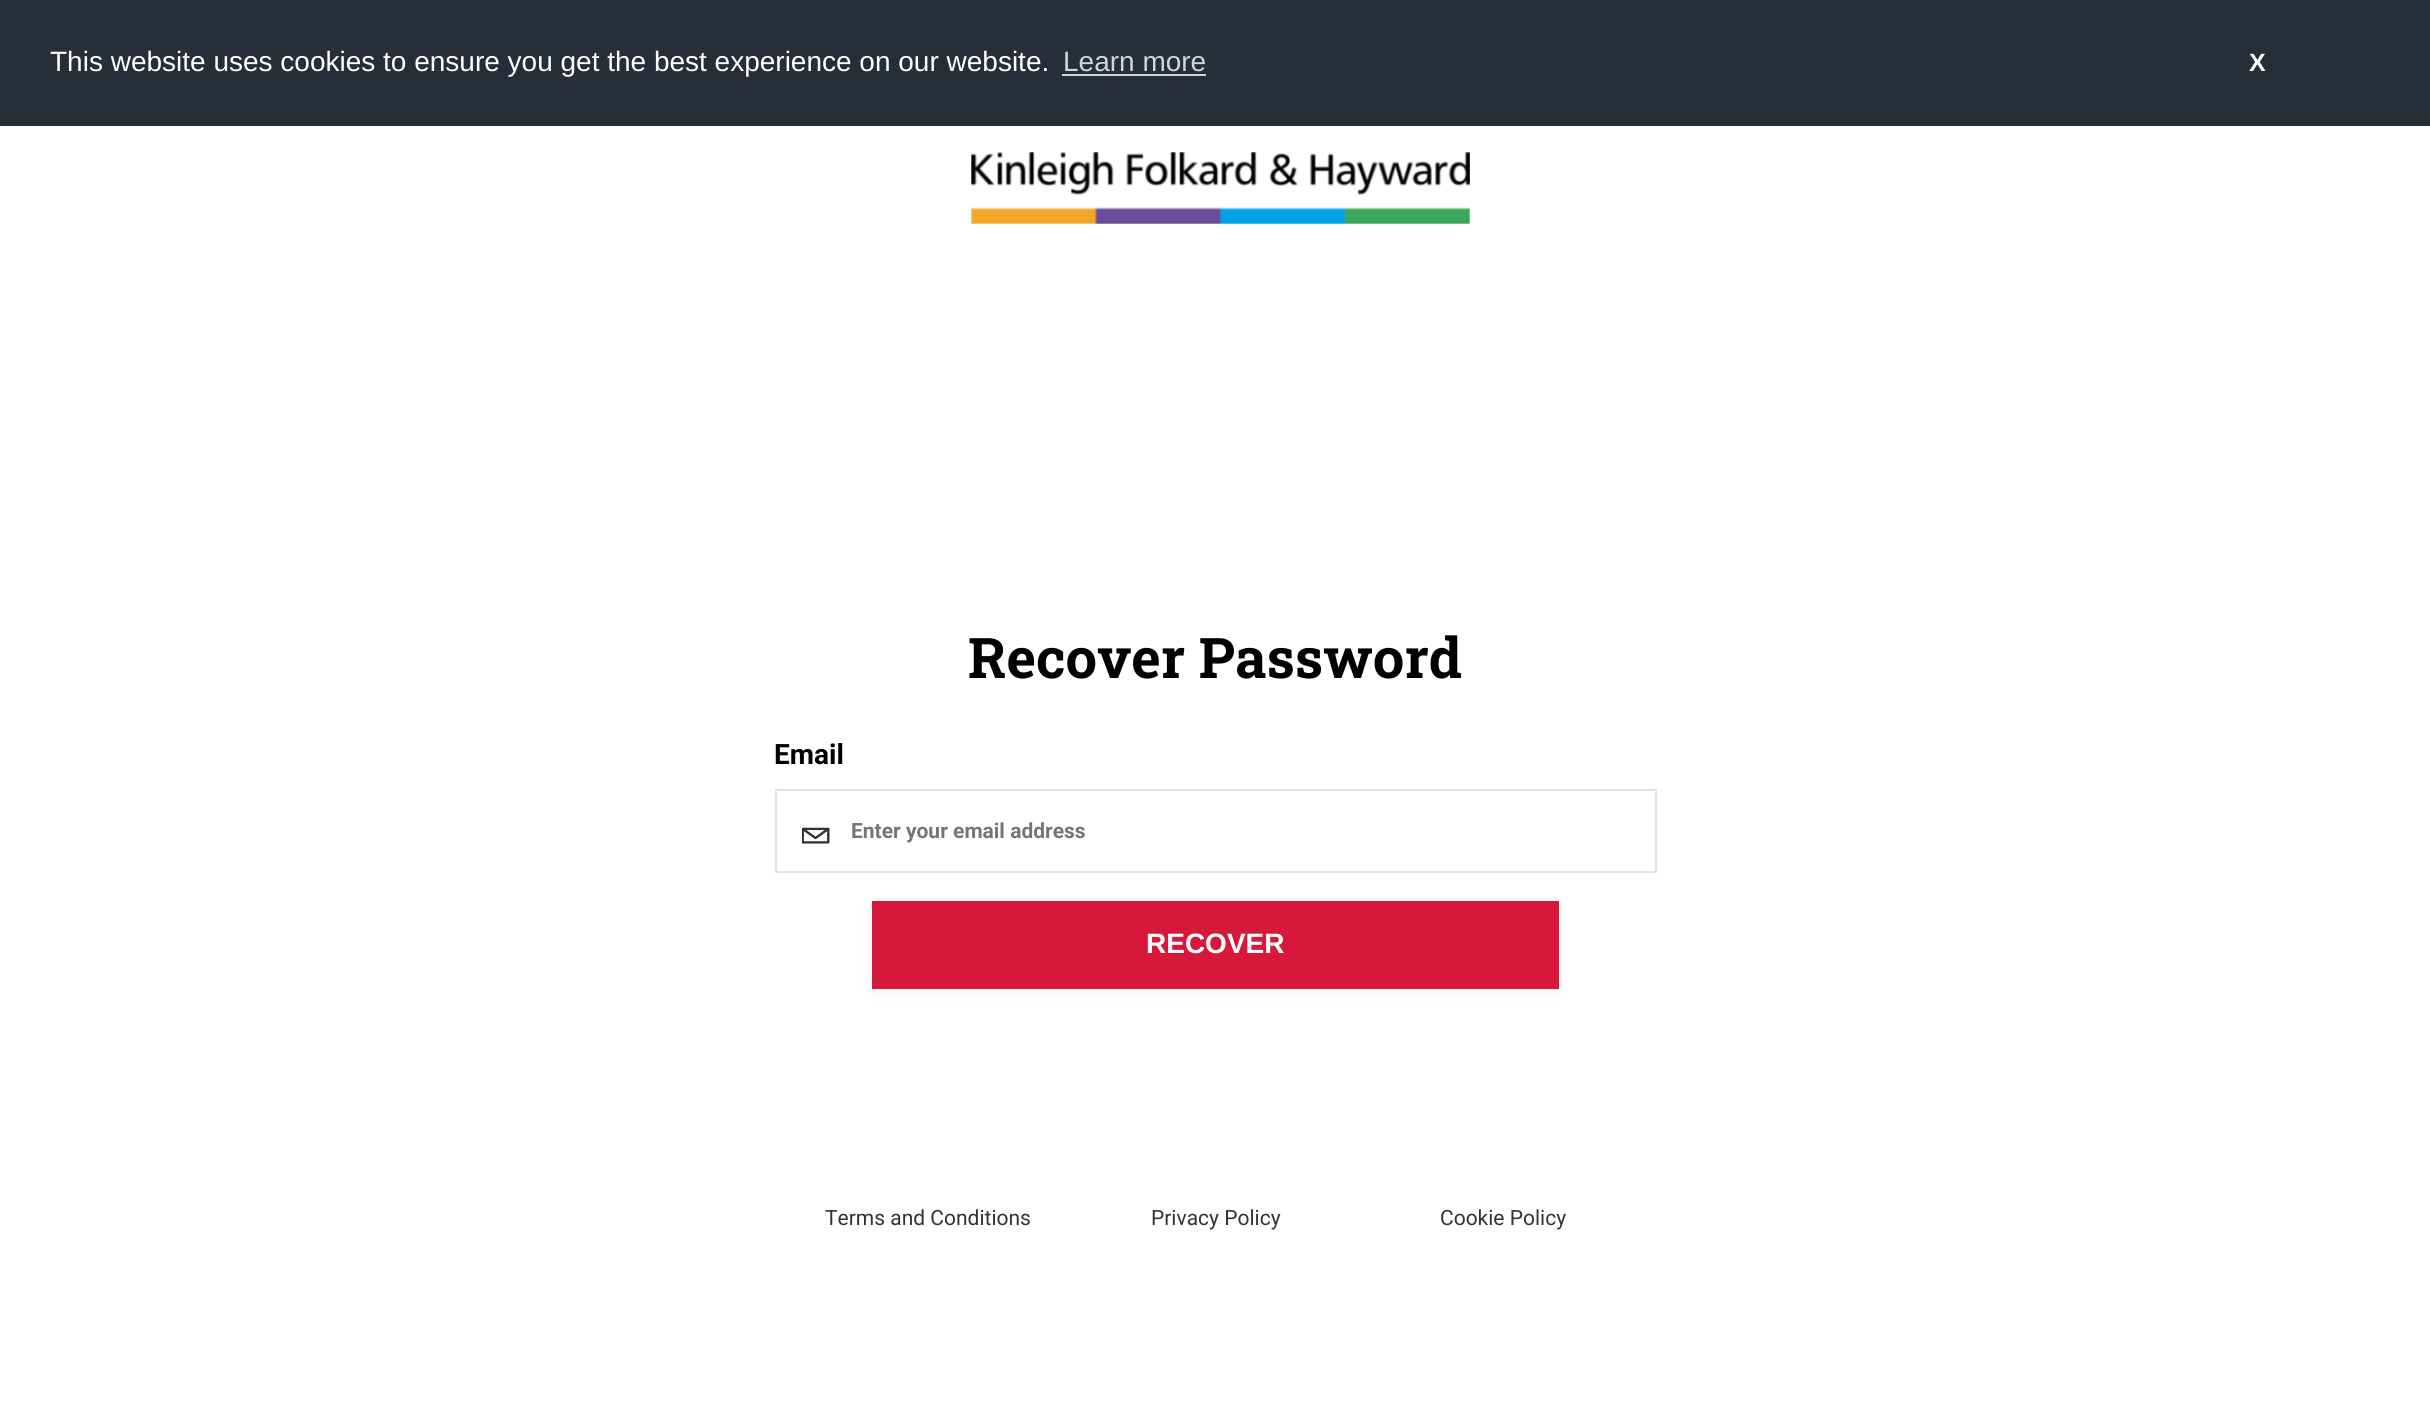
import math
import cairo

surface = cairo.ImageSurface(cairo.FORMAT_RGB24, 2430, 1419)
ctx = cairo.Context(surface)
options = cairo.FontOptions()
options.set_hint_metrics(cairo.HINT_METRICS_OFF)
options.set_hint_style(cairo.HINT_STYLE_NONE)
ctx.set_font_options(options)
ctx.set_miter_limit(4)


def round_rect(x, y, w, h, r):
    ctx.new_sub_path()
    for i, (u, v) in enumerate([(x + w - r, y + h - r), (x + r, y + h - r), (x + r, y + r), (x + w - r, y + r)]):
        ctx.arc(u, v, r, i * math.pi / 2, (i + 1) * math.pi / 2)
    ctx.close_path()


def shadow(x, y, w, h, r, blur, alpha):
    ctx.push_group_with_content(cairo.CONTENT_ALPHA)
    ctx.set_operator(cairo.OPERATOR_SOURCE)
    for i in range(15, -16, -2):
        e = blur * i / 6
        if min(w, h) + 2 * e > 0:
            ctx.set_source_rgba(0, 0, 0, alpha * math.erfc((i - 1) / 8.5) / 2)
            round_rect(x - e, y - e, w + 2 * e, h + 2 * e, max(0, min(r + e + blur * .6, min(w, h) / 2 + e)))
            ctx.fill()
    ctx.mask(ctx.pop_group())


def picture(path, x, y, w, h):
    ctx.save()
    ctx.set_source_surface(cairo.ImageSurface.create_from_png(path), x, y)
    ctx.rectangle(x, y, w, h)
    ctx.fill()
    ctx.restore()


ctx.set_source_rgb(1, 1, 1)
ctx.paint()
ctx.set_source_rgb(0.145, 0.18, 0.224)
ctx.rectangle(0, 0, 2430, 126)
ctx.fill()
ctx.select_font_face("Liberation Sans")
ctx.set_font_size(28)
ctx.set_source_rgb(1, 1, 1)
ctx.move_to(50, 71)
ctx.show_text("This website uses cookies to ensure you get the best experience on our website.")
ctx.set_source_rgb(0.827, 0.835, 0.843)
ctx.move_to(1063, 71)
ctx.show_text("Learn more")
ctx.rectangle(1062, 74, 144, 2)
ctx.fill()
ctx.select_font_face("Liberation Sans", cairo.FONT_SLANT_NORMAL, cairo.FONT_WEIGHT_BOLD)
ctx.set_font_size(25)
ctx.set_source_rgb(1, 1, 1)
ctx.move_to(2249, 71)
ctx.show_text("X")
picture("img1.png", 971, 152, 499, 72)
ctx.select_font_face("Roboto Slab", cairo.FONT_SLANT_NORMAL, cairo.FONT_WEIGHT_BOLD)
ctx.set_font_size(56)
ctx.set_source_rgb(0, 0, 0)
ctx.move_to(968, 678)
ctx.show_text("Recover Password")
ctx.select_font_face("Roboto", cairo.FONT_SLANT_NORMAL, cairo.FONT_WEIGHT_BOLD)
ctx.set_font_size(28)
ctx.move_to(774, 764)
ctx.show_text("Email")
picture("img2.png", 802, 827, 28, 17)
ctx.rectangle(776, 790, 880, 82)
ctx.set_source_rgb(0.89, 0.89, 0.89)
ctx.stroke()
ctx.set_font_size(21)
ctx.set_source_rgb(0.459, 0.459, 0.459)
ctx.move_to(851, 838)
ctx.show_text("Enter your email address")
ctx.set_source_rgb(0, 0, 0)
shadow(872, 905, 687, 87, 0, 7, 0.05)
ctx.set_source_rgb(0.847, 0.094, 0.227)
ctx.rectangle(872, 901, 687, 88)
ctx.fill()
ctx.select_font_face("Liberation Sans", cairo.FONT_SLANT_NORMAL, cairo.FONT_WEIGHT_BOLD)
ctx.set_font_size(28)
ctx.set_source_rgb(1, 1, 1)
ctx.move_to(1146, 953)
ctx.show_text("RECOVER")
ctx.select_font_face("Roboto")
ctx.set_font_size(21)
ctx.set_source_rgb(0.2, 0.2, 0.2)
ctx.move_to(825, 1225)
ctx.show_text("Terms and Conditions")
ctx.move_to(1151, 1225)
ctx.show_text("Privacy Policy")
ctx.move_to(1440, 1225)
ctx.show_text("Cookie Policy")
surface.write_to_png("page.png")
